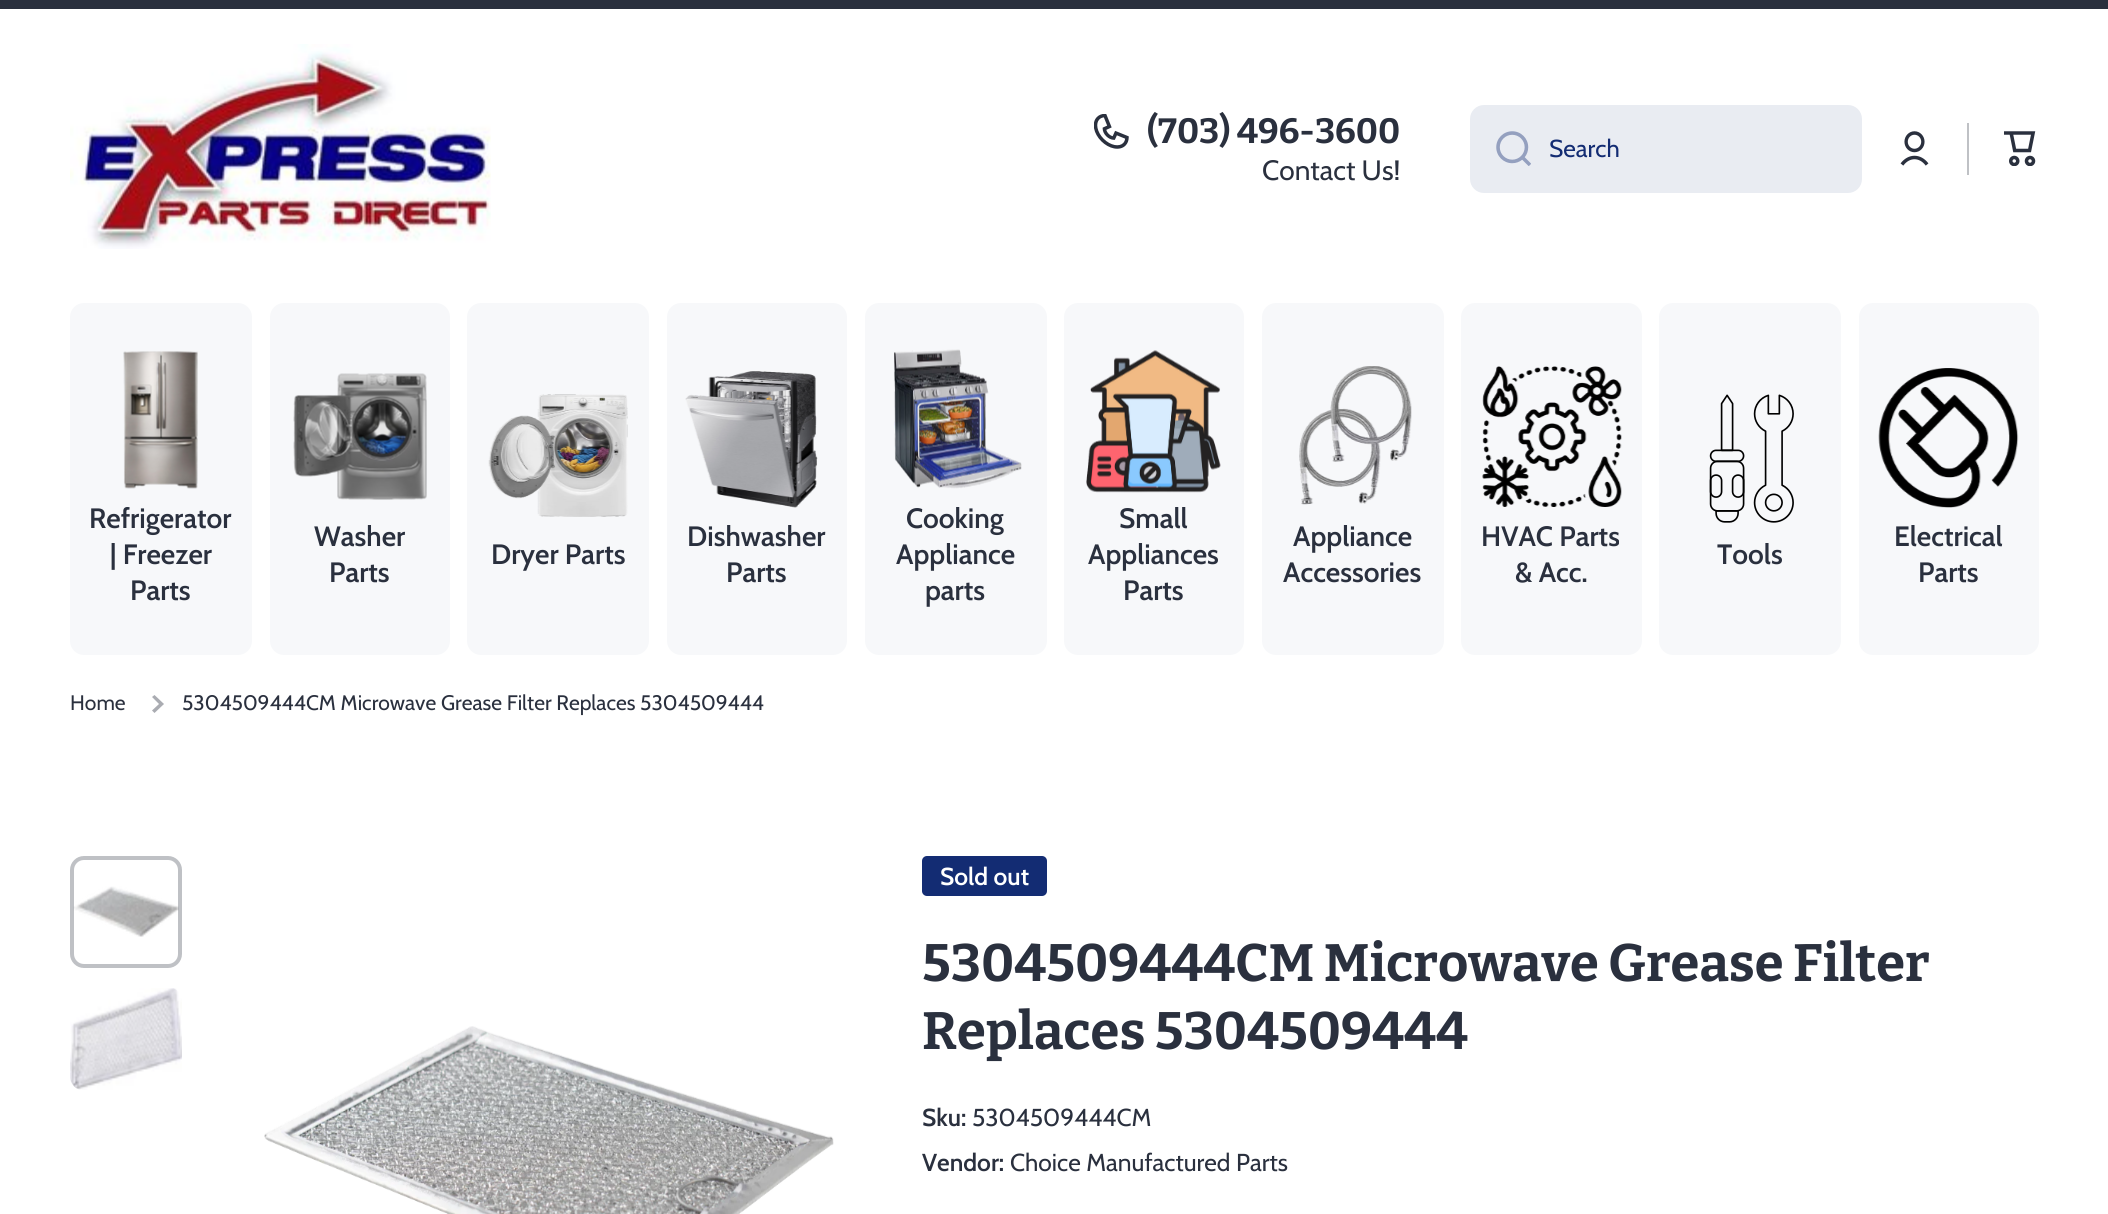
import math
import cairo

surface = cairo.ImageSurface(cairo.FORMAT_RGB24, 2108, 1214)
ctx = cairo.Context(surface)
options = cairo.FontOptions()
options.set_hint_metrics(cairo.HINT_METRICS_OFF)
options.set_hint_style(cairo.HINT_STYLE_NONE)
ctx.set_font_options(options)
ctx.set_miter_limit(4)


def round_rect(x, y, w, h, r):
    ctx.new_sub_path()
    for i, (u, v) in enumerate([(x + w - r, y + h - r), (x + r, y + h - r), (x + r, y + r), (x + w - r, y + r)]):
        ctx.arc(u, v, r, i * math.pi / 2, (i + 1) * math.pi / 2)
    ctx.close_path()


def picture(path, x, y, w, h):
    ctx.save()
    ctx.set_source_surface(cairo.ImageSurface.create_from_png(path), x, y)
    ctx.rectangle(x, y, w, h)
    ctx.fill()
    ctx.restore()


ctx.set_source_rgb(1, 1, 1)
ctx.paint()
ctx.set_source_rgb(0.165, 0.188, 0.243)
ctx.rectangle(0, 0, 2108, 9)
ctx.fill()
picture("img1.png", 70, 44, 421, 205)
picture("img2.png", 1094, 114, 35, 35)
ctx.select_font_face("Bitter", cairo.FONT_SLANT_NORMAL, cairo.FONT_WEIGHT_BOLD)
ctx.set_font_size(35)
ctx.move_to(1147, 143)
ctx.show_text("(703) 496-3600")
ctx.select_font_face("Cabin")
ctx.set_font_size(28)
ctx.move_to(1262, 180)
ctx.show_text("Contact Us!")
ctx.set_source_rgb(0.914, 0.922, 0.949)
round_rect(1470, 105, 392, 88, 14)
ctx.fill()
picture("img3.png", 1496, 131, 35, 35)
ctx.set_font_size(24.5)
ctx.set_source_rgb(0.078, 0.173, 0.451)
ctx.move_to(1549, 157)
ctx.show_text("Search")
picture("img4.png", 1900, 131, 29, 35)
ctx.set_source_rgb(0.749, 0.757, 0.773)
ctx.rectangle(1967, 123, 2, 52)
ctx.fill()
picture("img5.png", 2004, 131, 32, 35)
ctx.set_source_rgb(0.965, 0.969, 0.98)
round_rect(70, 303, 182, 352, 14)
ctx.fill()
picture("img6.png", 123, 351, 75, 138)
ctx.select_font_face("Cabin SemiBold")
ctx.set_font_size(28)
ctx.set_source_rgb(0.165, 0.188, 0.243)
ctx.move_to(89, 528)
ctx.show_text("Refrigerator")
ctx.move_to(110, 564)
ctx.show_text("| Freezer")
ctx.move_to(130, 600)
ctx.show_text("Parts")
ctx.set_source_rgb(0.965, 0.969, 0.98)
round_rect(270, 303, 180, 352, 14)
ctx.fill()
picture("img7.png", 293, 373, 134, 127)
ctx.set_source_rgb(0.165, 0.188, 0.243)
ctx.move_to(314, 546)
ctx.show_text("Washer")
ctx.move_to(329, 582)
ctx.show_text("Parts")
ctx.set_source_rgb(0.965, 0.969, 0.98)
round_rect(467, 303, 182, 352, 14)
ctx.fill()
picture("img8.png", 488, 394, 140, 123)
ctx.set_source_rgb(0.165, 0.188, 0.243)
ctx.move_to(491, 564)
ctx.show_text("Dryer Parts")
ctx.set_source_rgb(0.965, 0.969, 0.98)
round_rect(667, 303, 180, 352, 14)
ctx.fill()
picture("img9.png", 685, 371, 133, 137)
ctx.set_source_rgb(0.165, 0.188, 0.243)
ctx.move_to(687, 546)
ctx.show_text("Dishwasher")
ctx.move_to(726, 582)
ctx.show_text("Parts")
ctx.set_source_rgb(0.965, 0.969, 0.98)
round_rect(865, 303, 182, 352, 14)
ctx.fill()
picture("img10.png", 894, 349, 128, 140)
ctx.set_source_rgb(0.165, 0.188, 0.243)
ctx.move_to(906, 528)
ctx.show_text("Cooking")
ctx.move_to(896, 564)
ctx.show_text("Appliance")
ctx.move_to(925, 600)
ctx.show_text("parts")
ctx.set_source_rgb(0.965, 0.969, 0.98)
round_rect(1064, 303, 180, 352, 14)
ctx.fill()
picture("img11.png", 1086, 350, 135, 143)
ctx.set_source_rgb(0.165, 0.188, 0.243)
ctx.move_to(1119, 528)
ctx.show_text("Small")
ctx.move_to(1088, 564)
ctx.show_text("Appliances")
ctx.move_to(1123, 600)
ctx.show_text("Parts")
ctx.set_source_rgb(0.965, 0.969, 0.98)
round_rect(1262, 303, 182, 352, 14)
ctx.fill()
picture("img12.png", 1299, 366, 113, 139)
ctx.set_source_rgb(0.165, 0.188, 0.243)
ctx.move_to(1293, 546)
ctx.show_text("Appliance")
ctx.move_to(1283, 582)
ctx.show_text("Accessories")
ctx.set_source_rgb(0.965, 0.969, 0.98)
round_rect(1461, 303, 181, 352, 14)
ctx.fill()
picture("img13.png", 1482, 366, 140, 141)
ctx.set_source_rgb(0.165, 0.188, 0.243)
ctx.move_to(1481, 546)
ctx.show_text("HVAC Parts")
ctx.move_to(1515, 582)
ctx.show_text("& Acc.")
ctx.set_source_rgb(0.965, 0.969, 0.98)
round_rect(1659, 303, 182, 352, 14)
ctx.fill()
picture("img14.png", 1709, 394, 85, 129)
ctx.set_source_rgb(0.165, 0.188, 0.243)
ctx.move_to(1717, 564)
ctx.show_text("Tools")
ctx.set_source_rgb(0.965, 0.969, 0.98)
round_rect(1859, 303, 180, 352, 14)
ctx.fill()
picture("img15.png", 1878, 368, 141, 140)
ctx.set_source_rgb(0.165, 0.188, 0.243)
ctx.move_to(1894, 546)
ctx.show_text("Electrical")
ctx.move_to(1918, 582)
ctx.show_text("Parts")
ctx.select_font_face("Cabin")
ctx.set_font_size(21)
ctx.move_to(70, 710)
ctx.show_text("Home")
ctx.set_source_rgb(0.667, 0.675, 0.698)
ctx.set_fill_rule(cairo.FILL_RULE_EVEN_ODD)
ctx.new_path()
ctx.move_to(159, 704)
ctx.line_to(152, 697)
ctx.line_to(154.5, 695)
ctx.line_to(164, 704)
ctx.line_to(154.5, 713)
ctx.line_to(152, 710.5)
ctx.close_path()
ctx.fill()
ctx.set_source_rgb(0.165, 0.188, 0.243)
ctx.move_to(182, 710)
ctx.show_text("5304509444CM Microwave Grease Filter Replaces 5304509444")
picture("img16.png", 73, 886, 106, 51)
round_rect(72, 858, 108, 108, 12)
ctx.set_source_rgba(0.165, 0.188, 0.243, 0.3)
ctx.set_line_width(4)
ctx.stroke()
picture("img17.png", 70, 988, 112, 102)
picture("img18.png", 264, 1026, 570, 188)
ctx.set_source_rgb(0.078, 0.173, 0.451)
round_rect(922, 856, 125, 40, 5)
ctx.fill()
ctx.select_font_face("Cabin SemiBold")
ctx.set_font_size(24.5)
ctx.set_source_rgb(1, 1, 1)
ctx.move_to(940, 885)
ctx.show_text("Sold out")
ctx.select_font_face("Bitter", cairo.FONT_SLANT_NORMAL, cairo.FONT_WEIGHT_BOLD)
ctx.set_font_size(52.5)
ctx.set_source_rgb(0.165, 0.188, 0.243)
ctx.move_to(922, 981)
ctx.show_text("5304509444CM Microwave Grease Filter")
ctx.move_to(922, 1049)
ctx.show_text("Replaces 5304509444")
ctx.select_font_face("Cabin SemiBold")
ctx.set_font_size(24.5)
ctx.move_to(922, 1126)
ctx.show_text("Sku:")
ctx.select_font_face("Cabin")
ctx.move_to(972, 1126)
ctx.show_text("5304509444CM")
ctx.select_font_face("Cabin SemiBold")
ctx.move_to(922, 1171)
ctx.show_text("Vendor:")
ctx.select_font_face("Cabin")
ctx.move_to(1010, 1171)
ctx.show_text("Choice Manufactured Parts")
surface.write_to_png("page.png")
